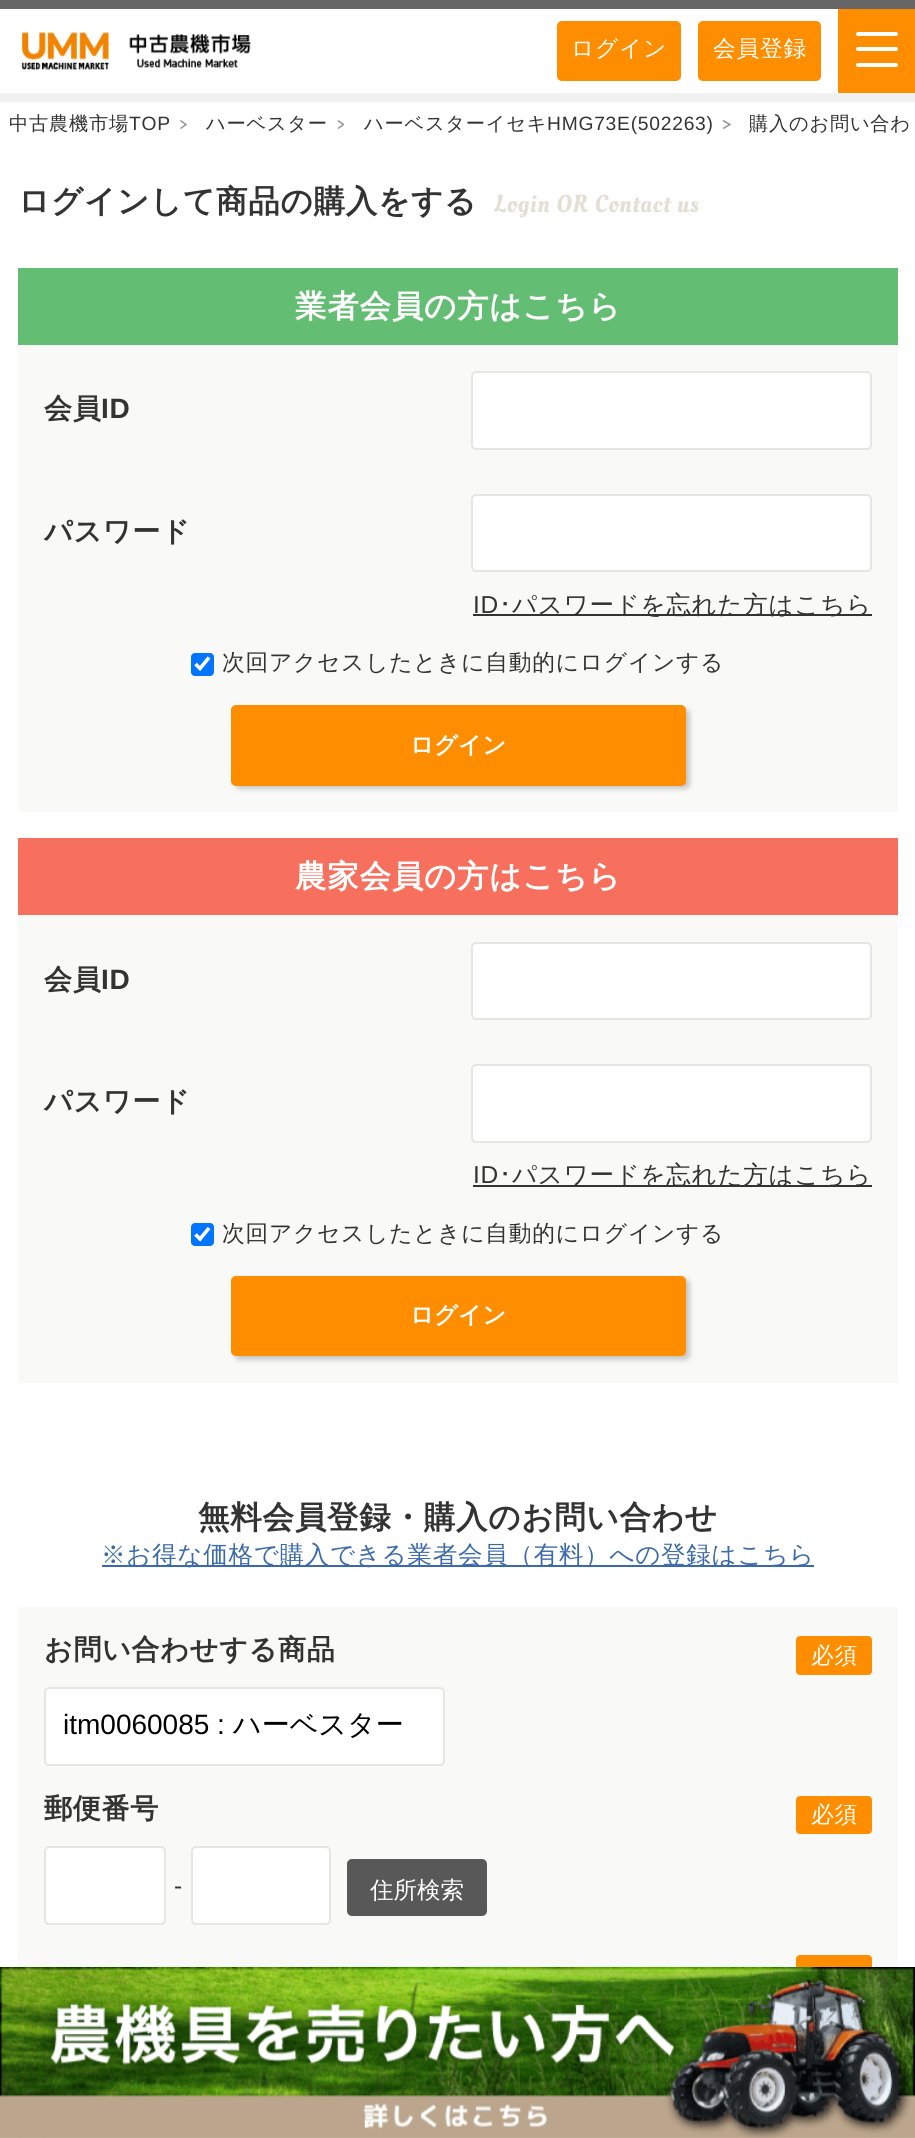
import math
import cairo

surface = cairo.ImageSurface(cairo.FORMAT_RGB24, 915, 2138)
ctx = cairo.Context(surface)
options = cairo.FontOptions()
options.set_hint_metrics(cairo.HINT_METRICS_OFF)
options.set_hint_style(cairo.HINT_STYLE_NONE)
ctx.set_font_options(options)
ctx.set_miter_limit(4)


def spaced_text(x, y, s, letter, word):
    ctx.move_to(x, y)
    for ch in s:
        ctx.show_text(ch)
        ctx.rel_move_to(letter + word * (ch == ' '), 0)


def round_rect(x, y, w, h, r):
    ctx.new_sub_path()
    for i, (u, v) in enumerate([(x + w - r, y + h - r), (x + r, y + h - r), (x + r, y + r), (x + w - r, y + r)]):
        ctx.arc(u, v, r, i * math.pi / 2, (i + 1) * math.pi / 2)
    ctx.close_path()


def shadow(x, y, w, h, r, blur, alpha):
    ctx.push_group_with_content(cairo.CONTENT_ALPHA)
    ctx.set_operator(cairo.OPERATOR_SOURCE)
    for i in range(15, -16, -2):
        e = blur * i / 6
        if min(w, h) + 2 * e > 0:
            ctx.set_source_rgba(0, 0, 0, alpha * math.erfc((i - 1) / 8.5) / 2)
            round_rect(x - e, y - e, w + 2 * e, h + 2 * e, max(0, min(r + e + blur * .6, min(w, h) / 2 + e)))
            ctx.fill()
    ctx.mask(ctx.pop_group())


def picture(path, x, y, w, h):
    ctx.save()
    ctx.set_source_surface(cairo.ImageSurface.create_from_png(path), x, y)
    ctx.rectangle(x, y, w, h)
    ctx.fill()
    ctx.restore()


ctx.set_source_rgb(1, 1, 1)
ctx.paint()
ctx.set_source_rgb(0.4, 0.4, 0.4)
ctx.rectangle(0, 0, 915, 9)
ctx.fill()
ctx.set_source_rgb(0.945, 0.945, 0.945)
ctx.rectangle(0, 93, 915, 9)
ctx.fill()
picture("img1.png", 21, 32, 230, 38)
ctx.set_source_rgb(1, 0.553, 0)
round_rect(557, 21, 124, 60, 5)
ctx.fill()
ctx.select_font_face("WenQuanYi Zen Hei Medium")
ctx.set_font_size(22.75)
ctx.set_source_rgb(1, 1, 1)
spaced_text(571, 56, "ログイン", 0.75, 0)
ctx.set_source_rgb(1, 0.553, 0)
round_rect(698, 21, 123, 60, 5)
ctx.fill()
ctx.set_source_rgb(1, 1, 1)
spaced_text(713, 56, "会員登録", 0.75, 0)
ctx.set_source_rgb(1, 0.553, 0)
ctx.rectangle(838, 9, 77, 84)
ctx.fill()
ctx.set_source_rgb(1, 1, 1)
round_rect(856, 32, 42, 4, 2)
ctx.fill()
round_rect(856, 47, 42, 4, 2)
ctx.fill()
round_rect(856, 63, 42, 4, 2)
ctx.fill()
picture("img2.png", 180, 120, 8, 10)
ctx.set_font_size(19.25)
ctx.set_source_rgb(0.2, 0.2, 0.2)
spaced_text(9, 130, "中古農機市場", 0.75, 0)
ctx.select_font_face("Liberation Sans")
spaced_text(129, 130, "TOP", 0.75, 0)
picture("img3.png", 337, 120, 8, 10)
ctx.select_font_face("WenQuanYi Zen Hei Medium")
spaced_text(206, 130, "ハーベスター", 0.75, 0)
picture("img4.png", 722, 120, 10, 10)
spaced_text(364, 130, "ハーベスターイセキ", 0.75, 0)
ctx.select_font_face("Liberation Sans")
spaced_text(547, 130, "HMG73E(502263)", 0.75, 0)
ctx.select_font_face("WenQuanYi Zen Hei Medium")
spaced_text(749, 130, "購入のお問い合わ", 0.75, 0)
ctx.select_font_face("WenQuanYi Zen Hei", cairo.FONT_SLANT_NORMAL, cairo.FONT_WEIGHT_BOLD)
ctx.set_font_size(31.5)
spaced_text(18, 212, "ログインして商品の購入をする", 0.75, 0)
ctx.select_font_face("Oleo Script")
ctx.set_font_size(24.5)
ctx.set_source_rgb(0.886, 0.875, 0.831)
spaced_text(494, 212, "Login OR Contact us", 0.75, 0)
ctx.set_source_rgb(0.976, 0.973, 0.965)
ctx.rectangle(18, 345, 880, 467)
ctx.fill()
ctx.set_source_rgb(0.388, 0.741, 0.447)
ctx.rectangle(18, 268, 880, 77)
ctx.fill()
ctx.select_font_face("WenQuanYi Zen Hei", cairo.FONT_SLANT_NORMAL, cairo.FONT_WEIGHT_BOLD)
ctx.set_font_size(31.5)
ctx.set_source_rgb(1, 1, 1)
spaced_text(295, 317, "業者会員の方はこちら", 0.75, 0)
ctx.set_font_size(28)
ctx.set_source_rgb(0.2, 0.2, 0.2)
spaced_text(44, 418, "会員", 0.75, 0)
ctx.select_font_face("Liberation Sans", cairo.FONT_SLANT_NORMAL, cairo.FONT_WEIGHT_BOLD)
spaced_text(101, 418, "ID", 0.75, 0)
ctx.set_source_rgb(1, 1, 1)
round_rect(472, 372, 399, 77, 4)
ctx.fill_preserve()
ctx.set_source_rgb(0.91, 0.902, 0.89)
ctx.stroke()
ctx.select_font_face("WenQuanYi Zen Hei", cairo.FONT_SLANT_NORMAL, cairo.FONT_WEIGHT_BOLD)
ctx.set_source_rgb(0.2, 0.2, 0.2)
spaced_text(44, 541, "パスワード", 0.75, 0)
ctx.set_source_rgb(1, 1, 1)
round_rect(472, 495, 399, 76, 4)
ctx.fill_preserve()
ctx.set_source_rgb(0.91, 0.902, 0.89)
ctx.stroke()
ctx.select_font_face("Liberation Sans")
ctx.set_font_size(24.5)
ctx.set_source_rgb(0.2, 0.2, 0.2)
spaced_text(473, 613, "ID", 0.75, 0)
ctx.rectangle(473, 614, 399, 2)
ctx.fill()
ctx.select_font_face("IPAPGothic")
spaced_text(499, 613, "･", 0.75, 0)
ctx.select_font_face("WenQuanYi Zen Hei Medium")
spaced_text(512, 613, "パスワードを忘れた方はこちら", 0.75, 0)
ctx.set_source_rgb(0, 0.459, 1)
round_rect(191, 653, 23, 23, 4)
ctx.fill()
ctx.new_path()
ctx.move_to(195.5, 664)
ctx.line_to(200, 668.5)
ctx.line_to(209, 657.5)
ctx.set_source_rgb(1, 1, 1)
ctx.set_line_width(3.6)
ctx.stroke()
ctx.set_font_size(22.75)
ctx.set_source_rgb(0.2, 0.2, 0.2)
spaced_text(222, 670, "次回アクセスしたときに自動的にログインする", 0.75, 0)
ctx.set_source_rgb(0, 0, 0)
shadow(235, 709, 455, 80, 5, 2.5, 0.2)
ctx.set_source_rgb(1, 0.553, 0)
round_rect(231, 705, 455, 81, 5)
ctx.fill()
ctx.select_font_face("WenQuanYi Zen Hei", cairo.FONT_SLANT_NORMAL, cairo.FONT_WEIGHT_BOLD)
ctx.set_font_size(23.5)
ctx.set_source_rgb(1, 1, 1)
ctx.move_to(410, 753)
ctx.show_text("ログイン")
ctx.set_source_rgb(0.976, 0.973, 0.965)
ctx.rectangle(18, 915, 880, 468)
ctx.fill()
ctx.set_source_rgb(0.961, 0.439, 0.365)
ctx.rectangle(18, 838, 880, 77)
ctx.fill()
ctx.set_font_size(31.5)
ctx.set_source_rgb(1, 1, 1)
spaced_text(295, 887, "農家会員の方はこちら", 0.75, 0)
ctx.set_font_size(28)
ctx.set_source_rgb(0.2, 0.2, 0.2)
spaced_text(44, 989, "会員", 0.75, 0)
ctx.select_font_face("Liberation Sans", cairo.FONT_SLANT_NORMAL, cairo.FONT_WEIGHT_BOLD)
spaced_text(101, 989, "ID", 0.75, 0)
ctx.set_source_rgb(1, 1, 1)
round_rect(472, 943, 399, 76, 4)
ctx.fill_preserve()
ctx.set_source_rgb(0.91, 0.902, 0.89)
ctx.set_line_width(2)
ctx.stroke()
ctx.select_font_face("WenQuanYi Zen Hei", cairo.FONT_SLANT_NORMAL, cairo.FONT_WEIGHT_BOLD)
ctx.set_source_rgb(0.2, 0.2, 0.2)
spaced_text(44, 1111, "パスワード", 0.75, 0)
ctx.set_source_rgb(1, 1, 1)
round_rect(472, 1065, 399, 77, 4)
ctx.fill_preserve()
ctx.set_source_rgb(0.91, 0.902, 0.89)
ctx.stroke()
ctx.select_font_face("Liberation Sans")
ctx.set_font_size(24.5)
ctx.set_source_rgb(0.2, 0.2, 0.2)
spaced_text(473, 1183, "ID", 0.75, 0)
ctx.rectangle(473, 1185, 399, 2)
ctx.fill()
ctx.select_font_face("IPAPGothic")
spaced_text(499, 1183, "･", 0.75, 0)
ctx.select_font_face("WenQuanYi Zen Hei Medium")
spaced_text(512, 1183, "パスワードを忘れた方はこちら", 0.75, 0)
ctx.set_source_rgb(0, 0.459, 1)
round_rect(191, 1223, 23, 23, 4)
ctx.fill()
ctx.new_path()
ctx.move_to(195.5, 1234.5)
ctx.line_to(200, 1239)
ctx.line_to(209, 1228)
ctx.set_source_rgb(1, 1, 1)
ctx.set_line_width(3.6)
ctx.stroke()
ctx.set_font_size(22.75)
ctx.set_source_rgb(0.2, 0.2, 0.2)
spaced_text(222, 1241, "次回アクセスしたときに自動的にログインする", 0.75, 0)
ctx.set_source_rgb(0, 0, 0)
shadow(235, 1279, 455, 81, 5, 2.5, 0.2)
ctx.set_source_rgb(1, 0.553, 0)
round_rect(231, 1276, 455, 80, 5)
ctx.fill()
ctx.select_font_face("WenQuanYi Zen Hei", cairo.FONT_SLANT_NORMAL, cairo.FONT_WEIGHT_BOLD)
ctx.set_font_size(23.5)
ctx.set_source_rgb(1, 1, 1)
ctx.move_to(410, 1323)
ctx.show_text("ログイン")
ctx.set_font_size(31.5)
ctx.set_source_rgb(0.2, 0.2, 0.2)
spaced_text(198, 1528, "無料会員登録・購入のお問い合わせ", 0.75, 0)
ctx.set_source_rgb(0.227, 0.416, 0.671)
ctx.rectangle(102, 1565, 712, 2)
ctx.fill()
ctx.select_font_face("WenQuanYi Zen Hei Medium")
ctx.set_font_size(24.5)
spaced_text(101, 1563, "※お得な価格で購入できる業者会員（有料）への登録はこちら", 0.75, 0)
ctx.set_source_rgb(0.976, 0.973, 0.965)
ctx.rectangle(18, 1607, 880, 531)
ctx.fill()
ctx.select_font_face("WenQuanYi Zen Hei", cairo.FONT_SLANT_NORMAL, cairo.FONT_WEIGHT_BOLD)
ctx.set_font_size(28)
ctx.set_source_rgb(0.2, 0.2, 0.2)
spaced_text(44, 1659, "お問い合わせする商品", 0.75, 0)
ctx.set_source_rgb(1, 0.553, 0)
round_rect(796, 1636, 76, 39, 4)
ctx.fill()
ctx.select_font_face("WenQuanYi Zen Hei Medium")
ctx.set_font_size(22.75)
ctx.set_source_rgb(1, 1, 1)
spaced_text(811, 1663, "必須", 0.75, 0)
round_rect(45, 1688, 399, 77, 4)
ctx.fill_preserve()
ctx.set_source_rgb(0.91, 0.902, 0.89)
ctx.set_line_width(2)
ctx.stroke()
ctx.select_font_face("Liberation Sans")
ctx.set_font_size(28)
ctx.set_source_rgb(0, 0, 0)
ctx.move_to(63, 1734)
ctx.show_text("itm0060085 :")
ctx.select_font_face("WenQuanYi Zen Hei Medium")
ctx.move_to(233, 1734)
ctx.show_text("ハーベスター")
ctx.select_font_face("WenQuanYi Zen Hei", cairo.FONT_SLANT_NORMAL, cairo.FONT_WEIGHT_BOLD)
ctx.set_source_rgb(0.2, 0.2, 0.2)
spaced_text(44, 1818, "郵便番号", 0.75, 0)
ctx.set_source_rgb(1, 0.553, 0)
round_rect(796, 1796, 76, 38, 4)
ctx.fill()
ctx.select_font_face("WenQuanYi Zen Hei Medium")
ctx.set_font_size(22.75)
ctx.set_source_rgb(1, 1, 1)
spaced_text(811, 1822, "必須", 0.75, 0)
round_rect(45, 1847, 120, 77, 4)
ctx.fill_preserve()
ctx.set_source_rgb(0.91, 0.902, 0.89)
ctx.stroke()
ctx.select_font_face("Liberation Sans")
ctx.set_font_size(24.5)
ctx.set_source_rgb(0.2, 0.2, 0.2)
spaced_text(174, 1894, "-", 0.75, 0)
ctx.set_source_rgb(1, 1, 1)
round_rect(192, 1847, 138, 77, 4)
ctx.fill_preserve()
ctx.set_source_rgb(0.91, 0.902, 0.89)
ctx.stroke()
ctx.set_source_rgb(0.345, 0.345, 0.345)
round_rect(347, 1859, 140, 57, 5)
ctx.fill()
ctx.select_font_face("WenQuanYi Zen Hei Medium")
ctx.set_font_size(23.5)
ctx.set_source_rgb(1, 1, 1)
ctx.move_to(370, 1898)
ctx.show_text("住所検索")
ctx.set_source_rgb(1, 0.553, 0)
round_rect(796, 1955, 76, 38, 4)
ctx.fill()
ctx.rectangle(45, 2103, 826, 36)
ctx.set_source_rgb(0.91, 0.902, 0.89)
ctx.stroke()
picture("img5.png", 0, 1967, 915, 171)
surface.write_to_png("page.png")
